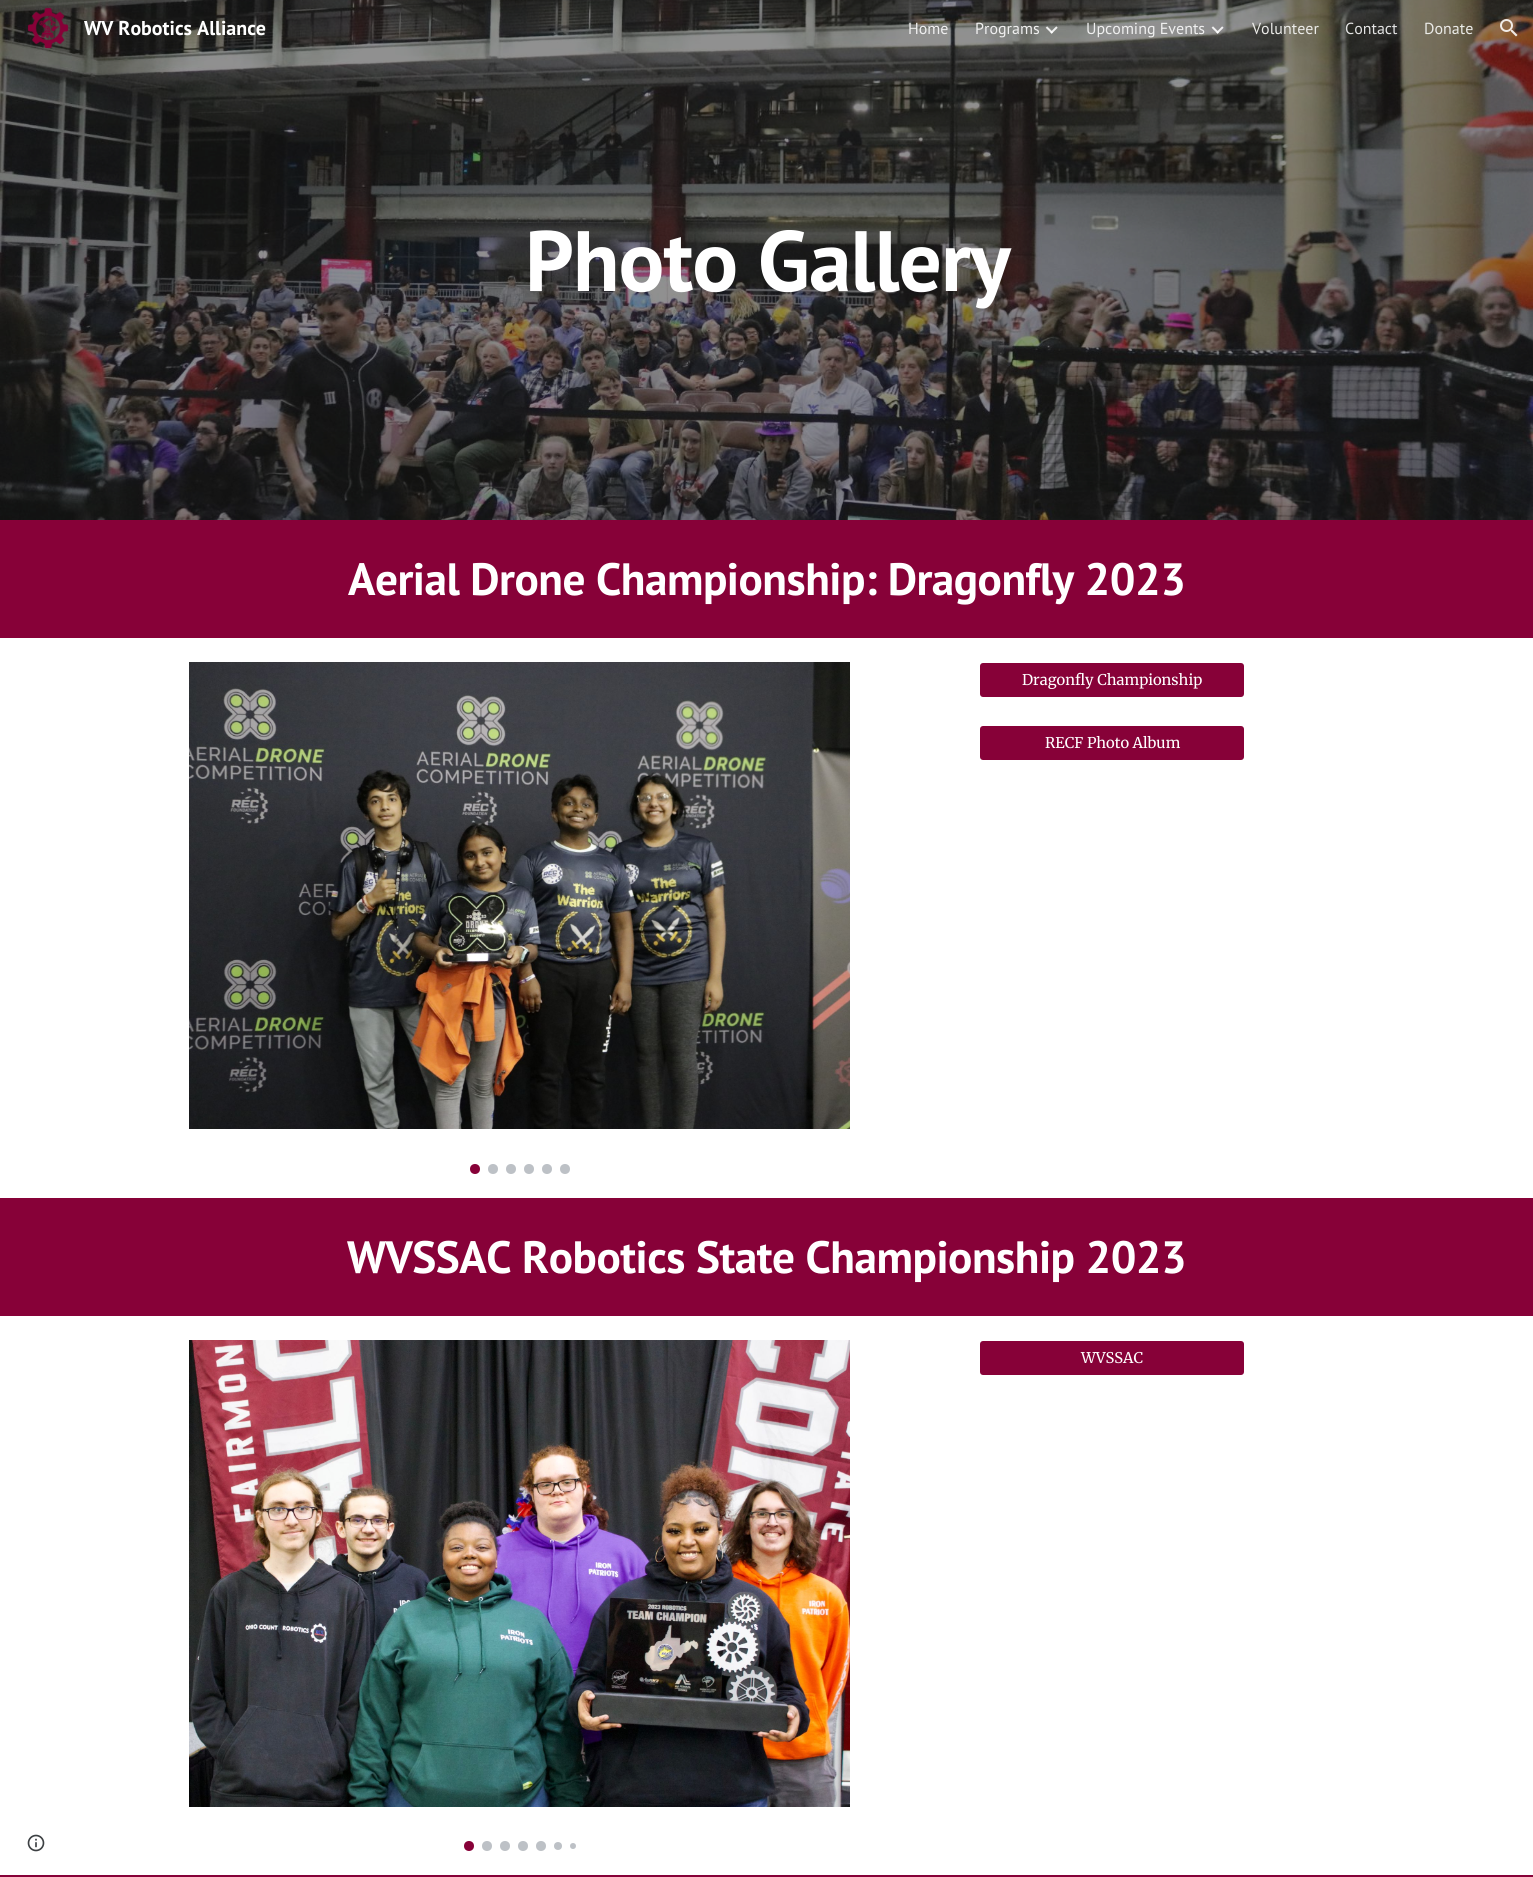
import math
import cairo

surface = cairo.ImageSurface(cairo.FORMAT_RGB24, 1533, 1877)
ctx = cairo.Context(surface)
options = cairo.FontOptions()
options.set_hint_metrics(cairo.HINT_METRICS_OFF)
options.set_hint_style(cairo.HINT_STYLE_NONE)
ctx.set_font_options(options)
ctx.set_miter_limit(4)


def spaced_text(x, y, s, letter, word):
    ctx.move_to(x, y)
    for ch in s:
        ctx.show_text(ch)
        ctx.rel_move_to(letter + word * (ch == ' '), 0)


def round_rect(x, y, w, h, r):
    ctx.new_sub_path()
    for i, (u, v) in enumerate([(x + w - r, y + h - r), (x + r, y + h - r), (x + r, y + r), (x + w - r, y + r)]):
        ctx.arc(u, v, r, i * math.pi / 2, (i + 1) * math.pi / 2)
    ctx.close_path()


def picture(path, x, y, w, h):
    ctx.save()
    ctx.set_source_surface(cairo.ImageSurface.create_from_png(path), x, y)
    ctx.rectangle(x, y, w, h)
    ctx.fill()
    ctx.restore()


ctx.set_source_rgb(1, 1, 1)
ctx.paint()
picture("img5.png", 0, 0, 1533, 520)
picture("img1.png", 27, 7, 42, 42)
ctx.select_font_face("PT Sans", cairo.FONT_SLANT_NORMAL, cairo.FONT_WEIGHT_BOLD)
ctx.set_font_size(20)
ctx.set_source_rgb(1, 1, 1)
ctx.move_to(84, 35)
ctx.show_text("WV Robotics Alliance")
ctx.select_font_face("PT Sans")
ctx.set_font_size(16)
ctx.set_source_rgb(0.937, 0.937, 0.937)
ctx.move_to(908, 34)
ctx.show_text("Home")
ctx.move_to(975, 34)
ctx.show_text("Programs")
picture("img2.png", 1045, 26, 13, 8)
ctx.move_to(1086, 34)
ctx.show_text("Upcoming Events")
picture("img3.png", 1211, 26, 13, 8)
ctx.set_source_rgb(0.918, 0.918, 0.91)
ctx.move_to(1252, 34)
ctx.show_text("Volunteer")
ctx.set_source_rgb(0.89, 0.89, 0.89)
ctx.move_to(1345, 34)
ctx.show_text("Contact")
ctx.set_source_rgb(0.918, 0.918, 0.91)
ctx.move_to(1424, 34)
ctx.show_text("Donate")
picture("img4.png", 1500, 19, 18, 18)
ctx.select_font_face("PT Sans", cairo.FONT_SLANT_NORMAL, cairo.FONT_WEIGHT_BOLD)
ctx.set_font_size(85.5)
ctx.set_source_rgb(1, 1, 1)
spaced_text(525, 291, "Photo Gallery", -1, 0)
ctx.set_source_rgb(0.529, 0.004, 0.22)
ctx.rectangle(0, 520, 1533, 118)
ctx.fill()
ctx.set_font_size(45.3)
ctx.set_source_rgb(1, 1, 1)
spaced_text(348, 595, "Aerial Drone Championship: Dragonfly 2023", -0.5, 0)
picture("img6.png", 189, 662, 661, 467)
ctx.set_source_rgb(0.529, 0.004, 0.22)
ctx.arc(475, 1169, 5, 0, 2 * math.pi)
ctx.fill()
ctx.set_source_rgb(0.741, 0.757, 0.776)
ctx.arc(493, 1169, 5, 0, 2 * math.pi)
ctx.fill()
ctx.arc(511, 1169, 5, 0, 2 * math.pi)
ctx.fill()
ctx.arc(529, 1169, 5, 0, 2 * math.pi)
ctx.fill()
ctx.arc(547, 1169, 5, 0, 2 * math.pi)
ctx.fill()
ctx.arc(565, 1169, 5, 0, 2 * math.pi)
ctx.fill()
ctx.set_source_rgb(0.529, 0.004, 0.22)
round_rect(980, 663, 264, 34, 3)
ctx.fill()
ctx.select_font_face("Merriweather")
ctx.set_font_size(14.75)
ctx.set_source_rgb(1, 1, 1)
ctx.move_to(1022, 685)
ctx.show_text("Dragonfly Championship")
ctx.set_source_rgb(0.529, 0.004, 0.22)
round_rect(980, 726, 264, 34, 3)
ctx.fill()
ctx.set_source_rgb(1, 1, 1)
ctx.move_to(1045, 748)
ctx.show_text("RECF Photo Album")
ctx.set_source_rgb(0.529, 0.004, 0.22)
ctx.rectangle(0, 1198, 1533, 118)
ctx.fill()
ctx.select_font_face("PT Sans", cairo.FONT_SLANT_NORMAL, cairo.FONT_WEIGHT_BOLD)
ctx.set_font_size(45.3)
ctx.set_source_rgb(1, 1, 1)
spaced_text(347, 1273, "WVSSAC Robotics State Championship 2023", -0.5, 0)
picture("img7.png", 189, 1340, 661, 467)
ctx.set_source_rgb(0.529, 0.004, 0.22)
ctx.arc(469, 1846, 5, 0, 2 * math.pi)
ctx.fill()
ctx.set_source_rgb(0.741, 0.757, 0.776)
ctx.arc(487, 1846, 5, 0, 2 * math.pi)
ctx.fill()
ctx.arc(505, 1846, 5, 0, 2 * math.pi)
ctx.fill()
ctx.arc(523, 1846, 5, 0, 2 * math.pi)
ctx.fill()
ctx.arc(541, 1846, 5, 0, 2 * math.pi)
ctx.fill()
ctx.arc(558, 1846, 4, 0, 2 * math.pi)
ctx.fill()
ctx.arc(573, 1846, 3, 0, 2 * math.pi)
ctx.fill()
ctx.set_source_rgb(0.529, 0.004, 0.22)
round_rect(980, 1341, 264, 34, 3)
ctx.fill()
ctx.select_font_face("Merriweather")
ctx.set_font_size(14.75)
ctx.set_source_rgb(1, 1, 1)
ctx.move_to(1081, 1363)
ctx.show_text("WVSSAC")
ctx.set_source_rgb(0.529, 0.004, 0.22)
ctx.rectangle(0, 1875, 1533, 2)
ctx.fill()
picture("img8.png", 27, 1834, 18, 18)
surface.write_to_png("page.png")
